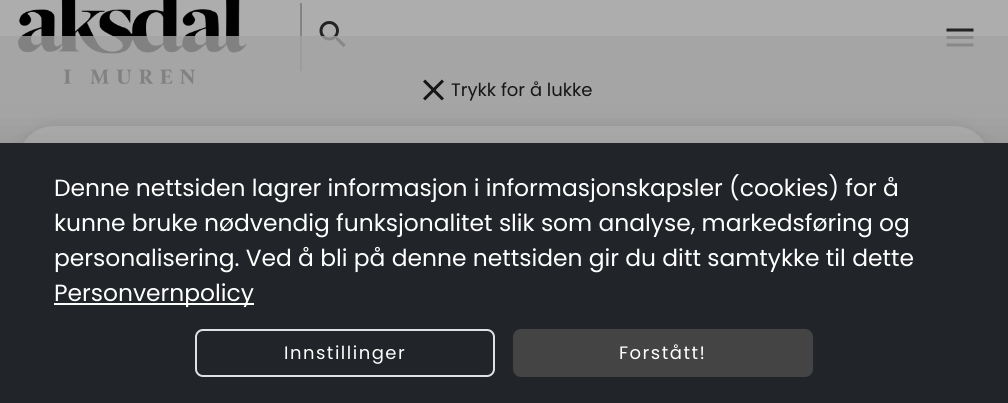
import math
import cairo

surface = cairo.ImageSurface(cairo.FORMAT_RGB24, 1008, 403)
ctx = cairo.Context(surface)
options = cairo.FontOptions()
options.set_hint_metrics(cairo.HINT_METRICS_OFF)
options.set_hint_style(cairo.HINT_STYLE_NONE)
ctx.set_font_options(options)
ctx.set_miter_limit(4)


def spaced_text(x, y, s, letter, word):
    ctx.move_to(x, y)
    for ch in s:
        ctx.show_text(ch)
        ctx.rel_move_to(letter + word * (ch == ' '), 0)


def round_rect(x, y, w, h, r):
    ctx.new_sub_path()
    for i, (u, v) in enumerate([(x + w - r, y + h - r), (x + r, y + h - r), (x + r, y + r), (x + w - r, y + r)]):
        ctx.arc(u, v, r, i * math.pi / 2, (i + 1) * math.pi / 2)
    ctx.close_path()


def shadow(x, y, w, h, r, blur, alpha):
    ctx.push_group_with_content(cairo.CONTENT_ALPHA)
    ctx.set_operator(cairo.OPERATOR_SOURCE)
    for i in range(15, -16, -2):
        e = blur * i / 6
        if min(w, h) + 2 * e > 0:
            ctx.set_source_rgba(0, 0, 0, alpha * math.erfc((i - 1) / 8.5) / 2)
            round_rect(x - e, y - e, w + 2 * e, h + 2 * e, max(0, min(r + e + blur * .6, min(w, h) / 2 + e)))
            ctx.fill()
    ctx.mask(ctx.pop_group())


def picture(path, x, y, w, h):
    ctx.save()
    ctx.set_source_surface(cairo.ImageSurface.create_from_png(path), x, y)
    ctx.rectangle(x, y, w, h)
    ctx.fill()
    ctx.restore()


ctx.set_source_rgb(0.678, 0.678, 0.678)
ctx.paint()
picture("img1.png", 18, 0, 229, 84)
ctx.set_source_rgb(0.518, 0.518, 0.518)
ctx.rectangle(300, 3, 2, 68)
ctx.fill()
picture("img2.png", 319, 21, 27, 27)
picture("img3.png", 946, 28, 28, 19)
ctx.set_source_rgba(0.639, 0.639, 0.639, 0.79)
ctx.rectangle(0, 36, 1008, 107)
ctx.fill()
picture("img4.png", 423, 79, 21, 22)
ctx.select_font_face("Poppins")
ctx.set_font_size(18)
ctx.set_source_rgb(0.086, 0.086, 0.086)
ctx.move_to(451, 96)
ctx.show_text("Trykk for å lukke")
ctx.set_source_rgb(0, 0, 0)
shadow(18, 128, 972, 259, 36, 7.5, 0.12)
ctx.set_source_rgb(0.678, 0.678, 0.678)
ctx.new_path()
ctx.move_to(54, 126)
ctx.line_to(954, 126)
ctx.curve_to(974, 126, 990, 142, 990, 162)
ctx.line_to(990, 386)
ctx.line_to(18, 386)
ctx.line_to(18, 162)
ctx.curve_to(18, 142, 34, 126, 54, 126)
ctx.close_path()
ctx.fill()
ctx.set_source_rgb(0, 0, 0)
shadow(-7, 144, 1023, 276, 0, 22.5, 0.12)
ctx.set_source_rgb(0.129, 0.145, 0.161)
ctx.rectangle(0, 143, 1008, 260)
ctx.fill()
ctx.set_font_size(23.4)
ctx.set_source_rgb(1, 1, 1)
ctx.move_to(54, 196)
ctx.show_text("Denne nettsiden lagrer informasjon i informasjonskapsler (cookies) for å")
ctx.move_to(54, 231)
ctx.show_text("kunne bruke nødvendig funksjonalitet slik som analyse, markedsføring og")
ctx.move_to(54, 266)
ctx.show_text("personalisering. Ved å bli på denne nettsiden gir du ditt samtykke til dette")
ctx.rectangle(54, 303, 200, 2)
ctx.fill()
ctx.move_to(54, 301)
ctx.show_text("Personvernpolicy")
round_rect(196, 330, 298, 46, 7)
ctx.set_source_rgb(0.871, 0.886, 0.902)
ctx.stroke()
ctx.set_font_size(18)
ctx.set_source_rgb(1, 1, 1)
spaced_text(284, 359, "Innstillinger", 1.5, 0)
ctx.set_source_rgb(0.267, 0.267, 0.267)
round_rect(513, 329, 300, 48, 8)
ctx.fill()
ctx.set_source_rgb(1, 1, 1)
spaced_text(619, 359, "Forstått!", 1.5, 0)
surface.write_to_png("page.png")
